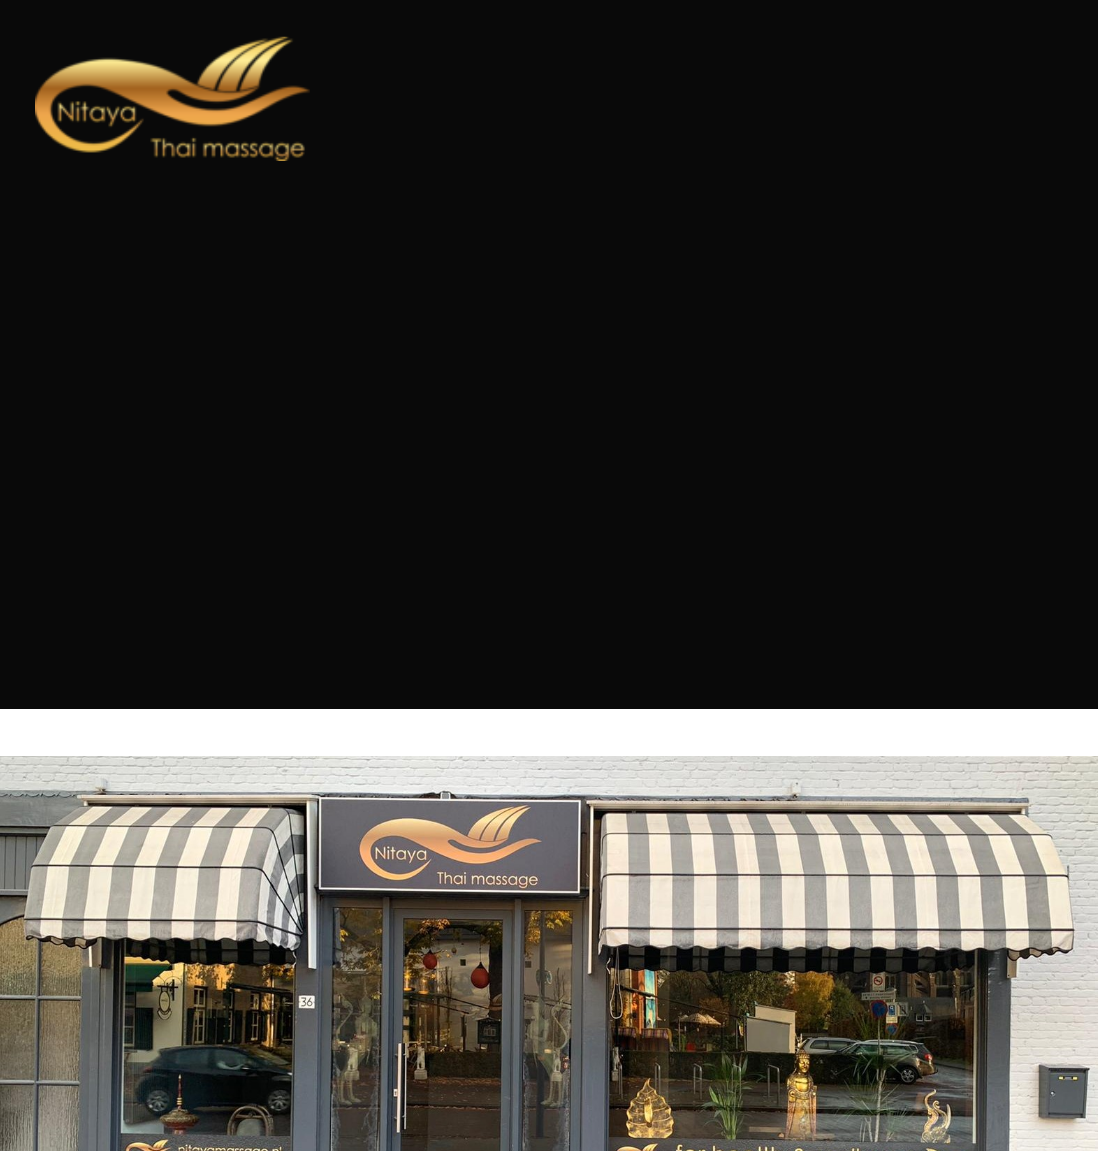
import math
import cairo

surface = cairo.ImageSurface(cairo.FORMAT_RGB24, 1098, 1151)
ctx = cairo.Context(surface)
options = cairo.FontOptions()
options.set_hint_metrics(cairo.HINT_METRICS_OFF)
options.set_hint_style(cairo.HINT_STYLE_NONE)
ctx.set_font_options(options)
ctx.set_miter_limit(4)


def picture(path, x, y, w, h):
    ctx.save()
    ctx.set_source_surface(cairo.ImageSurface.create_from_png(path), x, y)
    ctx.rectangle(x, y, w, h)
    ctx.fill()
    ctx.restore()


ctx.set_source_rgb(1, 1, 1)
ctx.paint()
ctx.set_source_rgb(0.039, 0.039, 0.039)
ctx.rectangle(0, 0, 1098, 709)
ctx.fill()
picture("img1.png", 35, 36, 275, 125)
picture("img2.png", 0, 756, 1098, 395)
surface.write_to_png("page.png")
